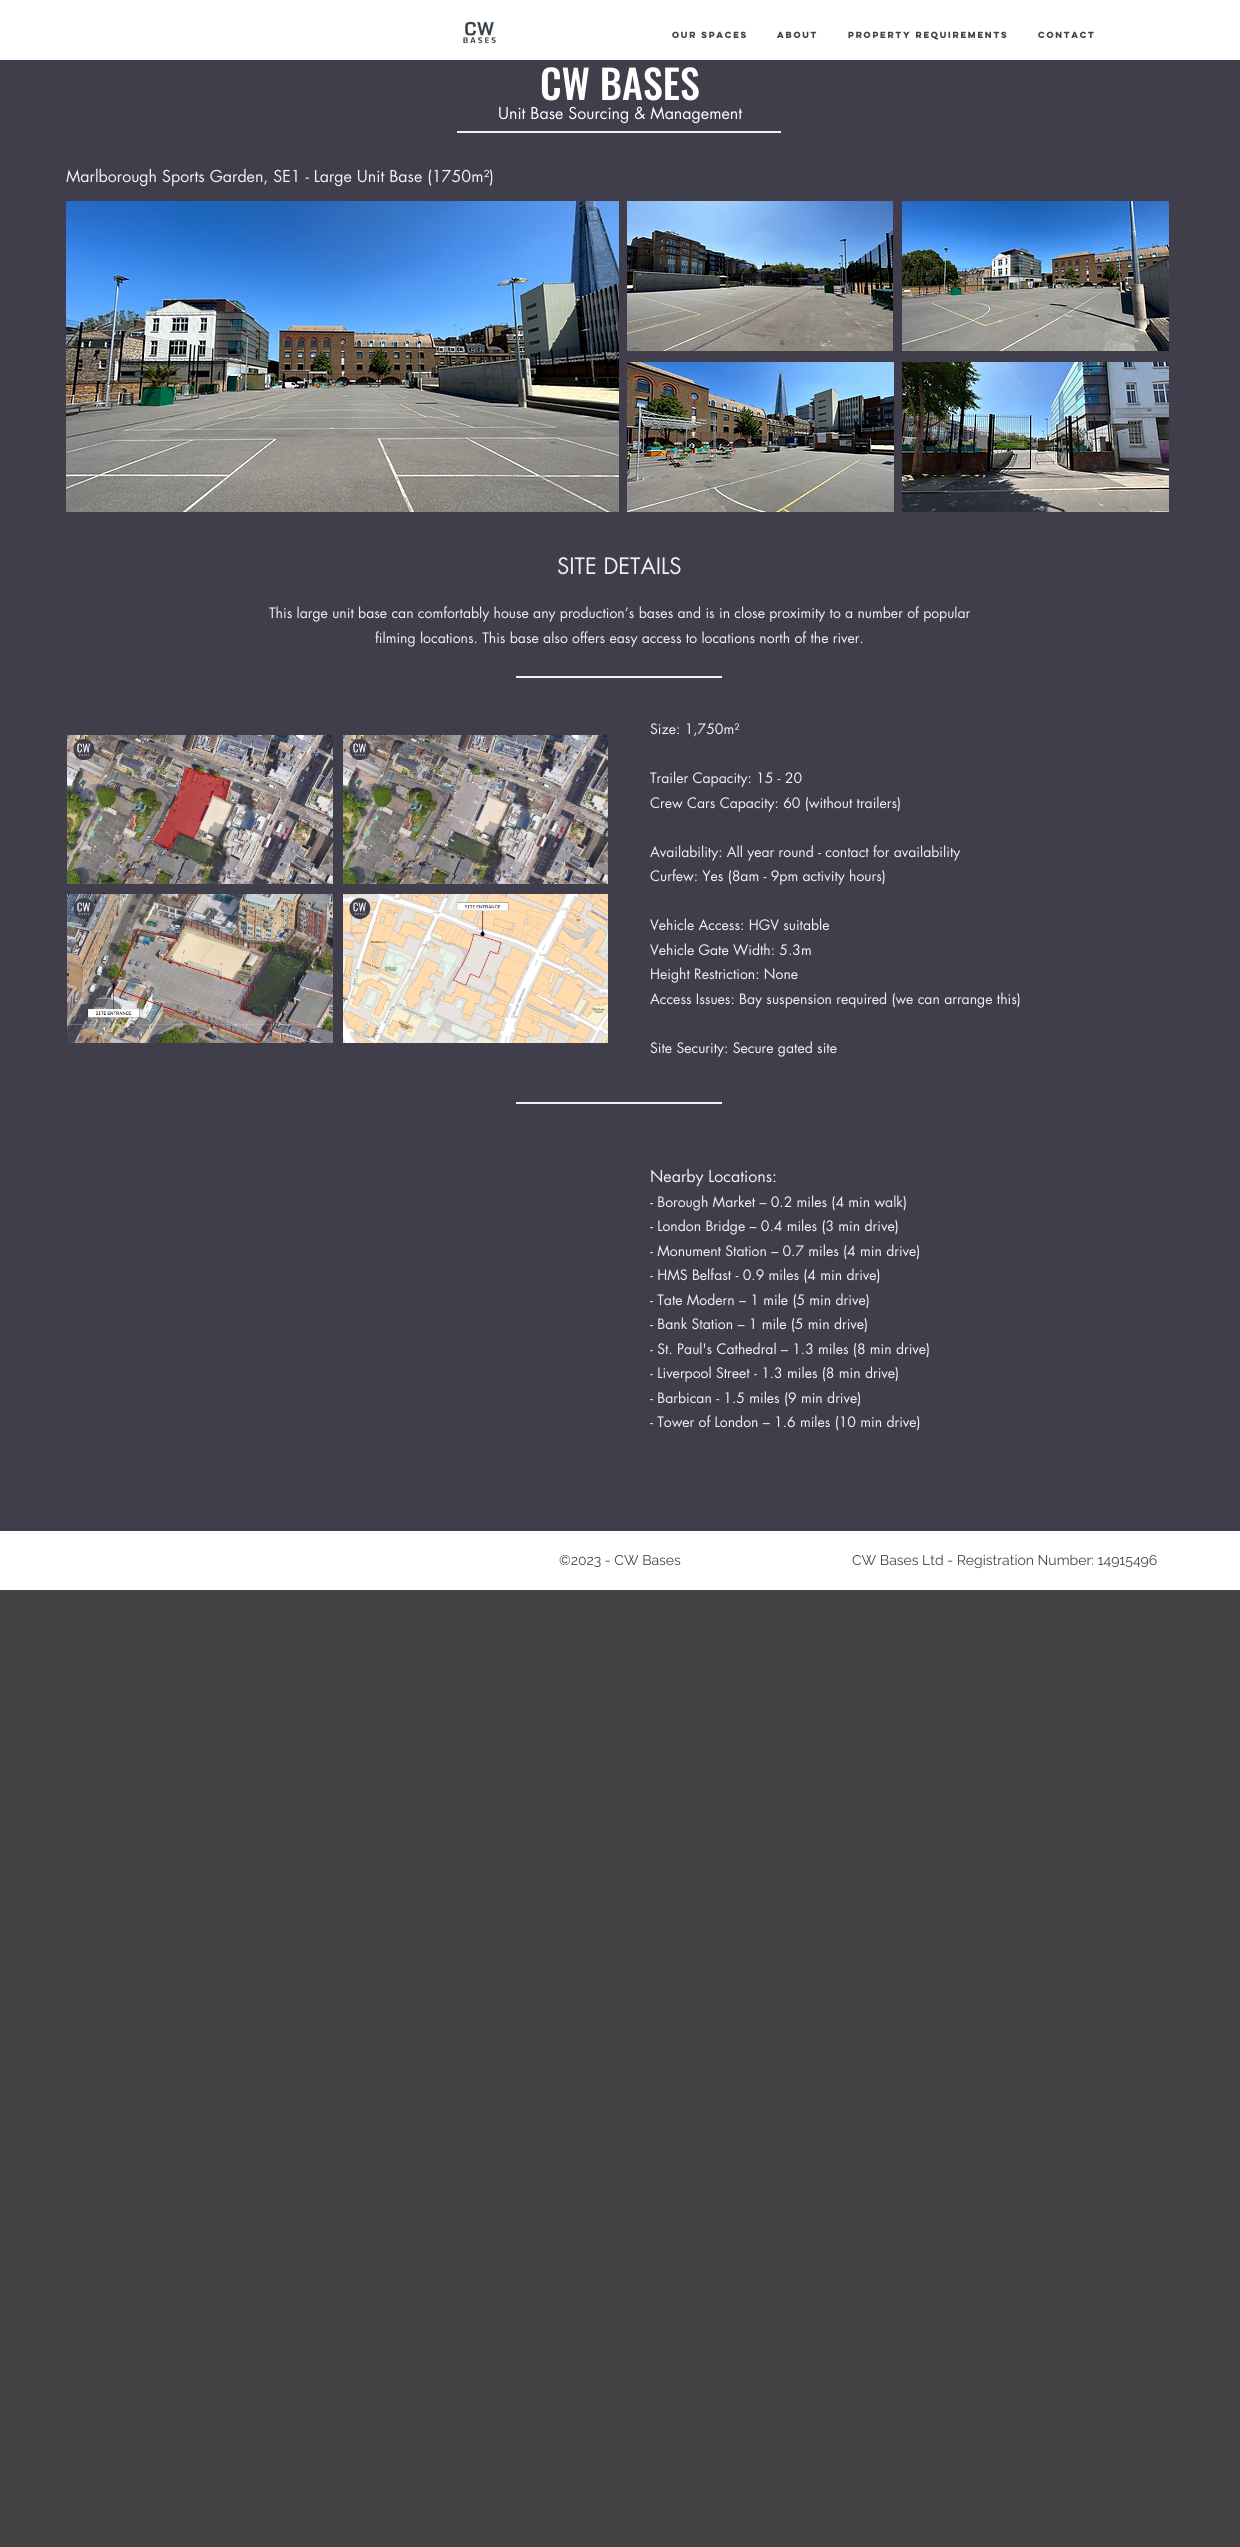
import math
import cairo

surface = cairo.ImageSurface(cairo.FORMAT_RGB24, 1240, 2547)
ctx = cairo.Context(surface)
options = cairo.FontOptions()
options.set_hint_metrics(cairo.HINT_METRICS_OFF)
options.set_hint_style(cairo.HINT_STYLE_NONE)
ctx.set_font_options(options)
ctx.set_miter_limit(4)


def picture(path, x, y, w, h):
    ctx.save()
    ctx.set_source_surface(cairo.ImageSurface.create_from_png(path), x, y)
    ctx.rectangle(x, y, w, h)
    ctx.fill()
    ctx.restore()


ctx.set_source_rgb(0.263, 0.263, 0.263)
ctx.paint()
ctx.set_source_rgb(1, 1, 1)
ctx.rectangle(0, 0, 1240, 60)
ctx.fill()
picture("img1.png", 463, 21, 33, 23)
ctx.select_font_face("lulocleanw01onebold", cairo.FONT_SLANT_NORMAL, cairo.FONT_WEIGHT_BOLD)
ctx.set_font_size(8)
ctx.set_source_rgb(0.263, 0.263, 0.263)
ctx.move_to(672, 38)
ctx.show_text("Our Spaces")
ctx.move_to(777, 38)
ctx.show_text("About")
ctx.move_to(848, 38)
ctx.show_text("Property Requirements")
ctx.move_to(1038, 38)
ctx.show_text("Contact")
ctx.set_source_rgb(0.255, 0.243, 0.294)
ctx.rectangle(0, 60, 1240, 1471)
ctx.fill()
ctx.select_font_face("Oswald Medium")
ctx.set_font_size(40)
ctx.set_source_rgb(1, 1, 1)
ctx.move_to(540, 100)
ctx.show_text("CW BASES")
ctx.select_font_face("futura")
ctx.set_font_size(16)
ctx.move_to(498, 119)
ctx.show_text("Unit Base Sourcing & Management")
ctx.set_source_rgb(0.949, 0.945, 0.941)
ctx.rectangle(457, 131, 324, 2)
ctx.fill()
ctx.move_to(66, 182)
ctx.show_text("Marlborough Sports Garden, SE1 - Large Unit Base (1750m²)")
picture("img2.png", 66, 201, 553, 311)
picture("img3.png", 627, 201, 266, 150)
picture("img4.png", 902, 201, 267, 150)
picture("img5.png", 627, 362, 267, 150)
picture("img6.png", 902, 362, 267, 150)
ctx.set_font_size(22)
ctx.move_to(557, 574)
ctx.show_text("SITE DETAILS")
ctx.set_font_size(14)
ctx.move_to(269, 618)
ctx.show_text("This large unit base can comfortably house any production’s bases and is in close proximity to a number of popular")
ctx.move_to(375, 643)
ctx.show_text("filming locations. This base also offers easy access to locations north of the river.")
ctx.rectangle(516, 676, 206, 2)
ctx.fill()
picture("img7.png", 67, 735, 266, 149)
picture("img8.png", 343, 735, 265, 149)
picture("img9.png", 67, 894, 266, 149)
picture("img10.png", 343, 894, 265, 149)
ctx.move_to(650, 734)
ctx.show_text("Size: 1,750m²")
ctx.move_to(650, 783)
ctx.show_text("Trailer Capacity: 15 - 20")
ctx.move_to(650, 808)
ctx.show_text("Crew Cars Capacity: 60 (without trailers)")
ctx.move_to(650, 857)
ctx.show_text("Availability: All year round - contact for availability")
ctx.move_to(650, 881)
ctx.show_text("Curfew: Yes (8am - 9pm activity hours)")
ctx.move_to(650, 930)
ctx.show_text("Vehicle Access: HGV suitable")
ctx.move_to(650, 955)
ctx.show_text("Vehicle Gate Width: 5.3m")
ctx.move_to(650, 979)
ctx.show_text("Height Restriction: None")
ctx.move_to(650, 1004)
ctx.show_text("Access Issues: Bay suspension required (we can arrange this)")
ctx.move_to(650, 1053)
ctx.show_text("Site Security: Secure gated site")
ctx.rectangle(516, 1102, 206, 2)
ctx.fill()
ctx.set_font_size(16)
ctx.move_to(650, 1182)
ctx.show_text("Nearby Locations:")
ctx.set_font_size(14)
ctx.move_to(650, 1207)
ctx.show_text("- Borough Market – 0.2 miles (4 min walk)")
ctx.move_to(650, 1231)
ctx.show_text("- London Bridge – 0.4 miles (3 min drive)")
ctx.move_to(650, 1256)
ctx.show_text("- Monument Station – 0.7 miles (4 min drive)")
ctx.move_to(650, 1280)
ctx.show_text("- HMS Belfast - 0.9 miles (4 min drive)")
ctx.move_to(650, 1305)
ctx.show_text("- Tate Modern – 1 mile (5 min drive)")
ctx.move_to(650, 1329)
ctx.show_text("- Bank Station – 1 mile (5 min drive)")
ctx.move_to(650, 1354)
ctx.show_text("- St. Paul's Cathedral – 1.3 miles (8 min drive)")
ctx.move_to(650, 1378)
ctx.show_text("- Liverpool Street - 1.3 miles (8 min drive)")
ctx.move_to(650, 1403)
ctx.show_text("- Barbican - 1.5 miles (9 min drive)")
ctx.move_to(650, 1427)
ctx.show_text("- Tower of London – 1.6 miles (10 min drive)")
ctx.set_source_rgb(1, 1, 1)
ctx.rectangle(0, 1531, 1240, 59)
ctx.fill()
ctx.select_font_face("Raleway")
ctx.set_source_rgb(0.263, 0.263, 0.263)
ctx.move_to(559, 1565)
ctx.show_text("©2023 - CW Bases")
ctx.move_to(852, 1565)
ctx.show_text("CW Bases Ltd - Registration Number: 14915496")
surface.write_to_png("page.png")
